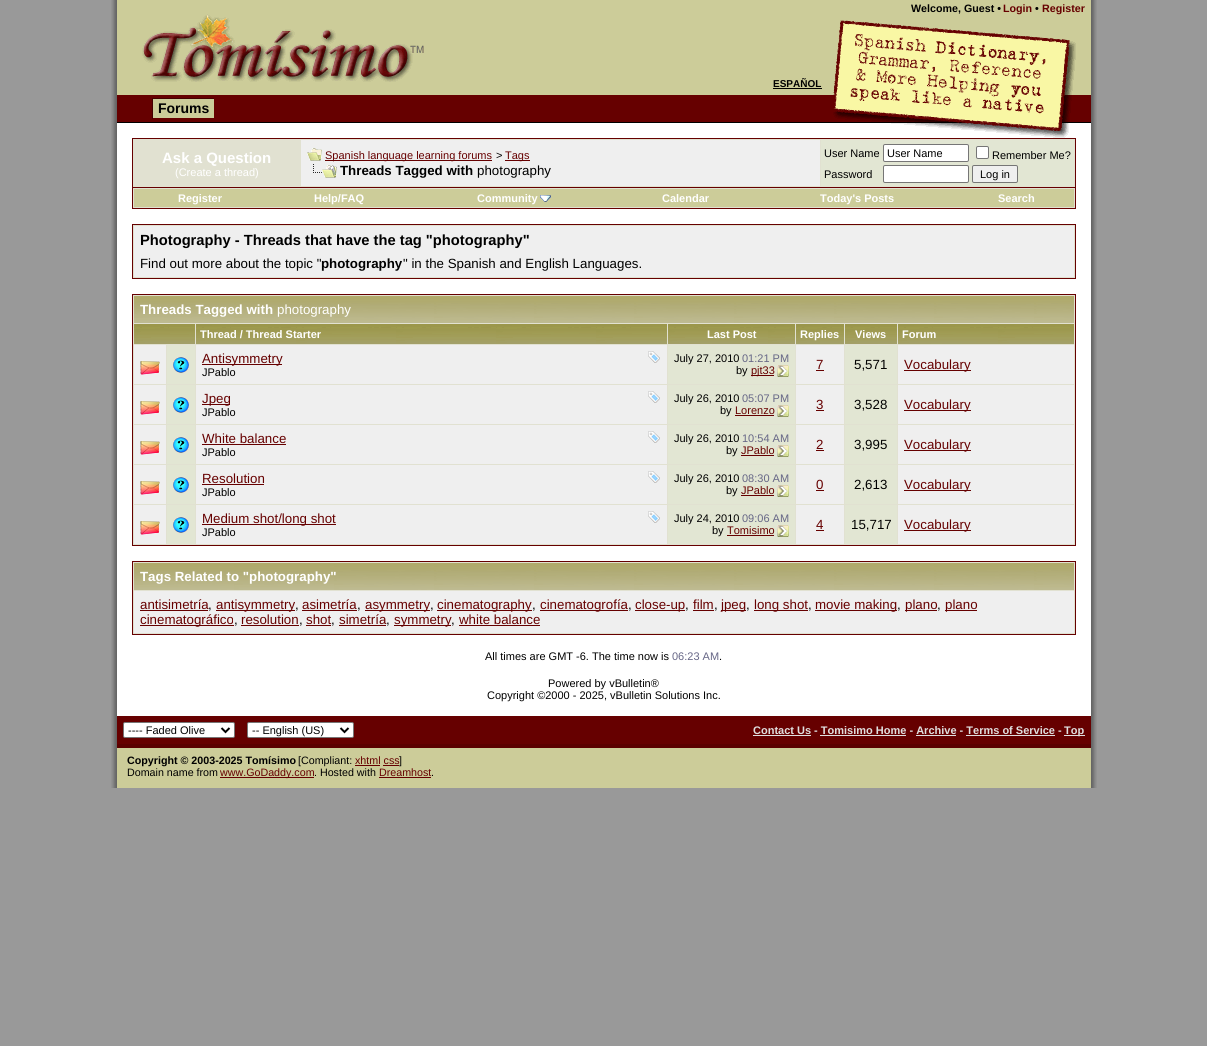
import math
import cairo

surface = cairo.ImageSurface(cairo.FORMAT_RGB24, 1207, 1046)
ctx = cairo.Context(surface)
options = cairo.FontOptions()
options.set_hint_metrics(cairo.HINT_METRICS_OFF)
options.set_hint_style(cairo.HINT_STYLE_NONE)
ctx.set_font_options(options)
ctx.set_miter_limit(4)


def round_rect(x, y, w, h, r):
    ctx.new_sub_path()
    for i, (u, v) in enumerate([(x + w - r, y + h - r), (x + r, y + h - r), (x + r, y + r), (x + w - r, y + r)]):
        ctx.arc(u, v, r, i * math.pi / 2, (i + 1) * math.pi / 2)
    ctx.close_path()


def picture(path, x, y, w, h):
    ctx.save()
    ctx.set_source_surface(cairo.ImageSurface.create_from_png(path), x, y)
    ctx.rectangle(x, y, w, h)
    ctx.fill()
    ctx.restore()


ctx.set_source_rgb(0.6, 0.6, 0.6)
ctx.paint()
picture("img1.png", 111, 0, 986, 788)
ctx.set_source_rgb(0.8, 0.8, 0.6)
ctx.rectangle(117, 0, 974, 95)
ctx.fill()
ctx.select_font_face("Liberation Sans", cairo.FONT_SLANT_NORMAL, cairo.FONT_WEIGHT_BOLD)
ctx.set_font_size(10.7)
ctx.set_source_rgb(0, 0, 0)
ctx.move_to(911, 12)
ctx.show_text("Welcome, Guest •")
ctx.set_source_rgb(0.4, 0, 0)
ctx.move_to(1003, 12)
ctx.show_text("Login")
ctx.set_source_rgb(0, 0, 0)
ctx.move_to(1035, 12)
ctx.show_text("•")
ctx.set_source_rgb(0.4, 0, 0)
ctx.move_to(1042, 12)
ctx.show_text("Register")
picture("img2.png", 142, 14, 282, 68)
ctx.set_font_size(10)
ctx.set_source_rgb(0, 0, 0)
ctx.move_to(773, 87)
ctx.show_text("ESPAÑOL")
ctx.rectangle(773, 88, 49, 1)
ctx.fill()
ctx.set_source_rgb(0.4, 0, 0)
ctx.rectangle(117, 95, 974, 27)
ctx.fill()
ctx.set_source_rgb(0, 0, 0)
ctx.rectangle(117, 122, 974, 1)
ctx.fill()
ctx.set_source_rgb(1, 1, 1)
ctx.rectangle(117, 123, 974, 593)
ctx.fill()
picture("img3.png", 833, 20, 243, 118)
ctx.set_source_rgb(0.8, 0.8, 0.6)
ctx.rectangle(153, 99, 61, 19)
ctx.fill()
ctx.set_font_size(14)
ctx.set_source_rgb(0, 0, 0)
ctx.move_to(158, 113)
ctx.show_text("Forums")
ctx.set_source_rgb(0.267, 0, 0)
ctx.rectangle(152, 98, 63, 1)
ctx.fill()
ctx.set_source_rgb(0.4, 0, 0)
ctx.rectangle(214, 98, 1, 1)
ctx.fill()
ctx.set_source_rgb(0.267, 0, 0)
ctx.rectangle(152, 98, 1, 21)
ctx.fill()
ctx.set_source_rgb(0.882, 0.882, 0.82)
ctx.rectangle(132.5, 138.5, 943, 49)
ctx.fill_preserve()
ctx.set_source_rgb(0.4, 0, 0)
ctx.set_line_width(1)
ctx.stroke()
ctx.set_font_size(15)
ctx.set_source_rgb(1, 1, 1)
ctx.move_to(162, 163)
ctx.show_text("Ask a Question")
ctx.select_font_face("Liberation Sans")
ctx.set_font_size(11)
ctx.move_to(175, 176)
ctx.show_text("(Create a thread)")
ctx.set_source_rgb(0.937, 0.937, 0.937)
ctx.rectangle(301, 140, 519, 46)
ctx.fill()
picture("img4.png", 307, 148, 15, 13)
ctx.set_source_rgb(0.4, 0, 0)
ctx.rectangle(325, 160, 167, 1)
ctx.fill()
ctx.move_to(325, 159)
ctx.show_text("Spanish language learning forums")
ctx.set_source_rgb(0, 0, 0)
ctx.move_to(496, 159)
ctx.show_text(">")
ctx.set_source_rgb(0.4, 0, 0)
ctx.rectangle(505, 160, 25, 1)
ctx.fill()
ctx.move_to(505, 159)
ctx.show_text("Tags")
picture("img5.png", 313, 164, 24, 14)
ctx.select_font_face("Liberation Sans", cairo.FONT_SLANT_NORMAL, cairo.FONT_WEIGHT_BOLD)
ctx.set_font_size(13.3)
ctx.set_source_rgb(0, 0, 0)
ctx.move_to(340, 175)
ctx.show_text("Threads Tagged with")
ctx.select_font_face("Liberation Sans")
ctx.move_to(477, 175)
ctx.show_text("photography")
ctx.set_source_rgb(0.886, 0.902, 0.827)
ctx.rectangle(821, 140, 253, 46)
ctx.fill()
ctx.set_font_size(11)
ctx.set_source_rgb(0, 0, 0)
ctx.move_to(824, 157)
ctx.show_text("User Name")
ctx.set_source_rgb(1, 1, 1)
round_rect(883.5, 144.5, 85, 17, 1.5)
ctx.fill_preserve()
ctx.set_source_rgb(0.463, 0.463, 0.463)
ctx.stroke()
ctx.set_source_rgb(0, 0, 0)
ctx.move_to(887, 157)
ctx.show_text("User Name")
ctx.set_source_rgb(1, 1, 1)
round_rect(976.5, 146.5, 12, 12, 1.5)
ctx.fill_preserve()
ctx.set_source_rgb(0.463, 0.463, 0.463)
ctx.stroke()
ctx.set_source_rgb(0, 0, 0)
ctx.move_to(992, 159)
ctx.show_text("Remember Me?")
ctx.move_to(824, 178)
ctx.show_text("Password")
ctx.set_source_rgb(1, 1, 1)
round_rect(883.5, 165.5, 85, 17, 1.5)
ctx.fill_preserve()
ctx.set_source_rgb(0.463, 0.463, 0.463)
ctx.stroke()
ctx.set_source_rgb(0.937, 0.937, 0.937)
round_rect(972.5, 165.5, 45, 17, 1.5)
ctx.fill_preserve()
ctx.set_source_rgb(0.463, 0.463, 0.463)
ctx.stroke()
ctx.set_source_rgb(0, 0, 0)
ctx.move_to(980, 178)
ctx.show_text("Log in")
ctx.set_source_rgb(0.882, 0.882, 0.82)
ctx.rectangle(133, 188, 942, 20)
ctx.fill()
ctx.set_source_rgb(0.4, 0, 0)
ctx.rectangle(1075, 188, 1, 21)
ctx.fill()
ctx.rectangle(132, 208, 944, 1)
ctx.fill()
ctx.rectangle(132, 188, 1, 21)
ctx.fill()
ctx.set_source_rgb(0.8, 0.8, 0.6)
ctx.rectangle(134, 189, 940, 18)
ctx.fill()
ctx.select_font_face("Liberation Sans", cairo.FONT_SLANT_NORMAL, cairo.FONT_WEIGHT_BOLD)
ctx.set_source_rgb(1, 1, 1)
ctx.move_to(178, 202)
ctx.show_text("Register")
ctx.move_to(314, 202)
ctx.show_text("Help/FAQ")
ctx.move_to(477, 202)
ctx.show_text("Community")
picture("img6.png", 540, 195, 11, 7)
ctx.move_to(662, 202)
ctx.show_text("Calendar")
ctx.move_to(820, 202)
ctx.show_text("Today's Posts")
ctx.move_to(998, 202)
ctx.show_text("Search")
ctx.set_source_rgb(0.882, 0.882, 0.82)
ctx.rectangle(132.5, 224.5, 943, 54)
ctx.fill_preserve()
ctx.set_source_rgb(0.4, 0, 0)
ctx.stroke()
ctx.set_source_rgb(0.937, 0.937, 0.937)
ctx.rectangle(134, 226, 940, 51)
ctx.fill()
ctx.set_font_size(14.7)
ctx.set_source_rgb(0, 0, 0)
ctx.move_to(140, 245)
ctx.show_text("Photography - Threads that have the tag \"photography\"")
ctx.select_font_face("Liberation Sans")
ctx.set_font_size(13.3)
ctx.move_to(140, 268)
ctx.show_text("Find out more about the topic \"")
ctx.select_font_face("Liberation Sans", cairo.FONT_SLANT_NORMAL, cairo.FONT_WEIGHT_BOLD)
ctx.move_to(321, 268)
ctx.show_text("photography")
ctx.select_font_face("Liberation Sans")
ctx.move_to(403, 268)
ctx.show_text("\" in the Spanish and English Languages.")
ctx.set_source_rgb(0.882, 0.882, 0.82)
ctx.rectangle(132.5, 294.5, 943, 251)
ctx.fill_preserve()
ctx.set_source_rgb(0.4, 0, 0)
ctx.stroke()
picture("img7.png", 134, 296, 940, 27)
ctx.select_font_face("Liberation Sans", cairo.FONT_SLANT_NORMAL, cairo.FONT_WEIGHT_BOLD)
ctx.set_source_rgb(1, 1, 1)
ctx.move_to(140, 314)
ctx.show_text("Threads Tagged with")
ctx.select_font_face("Liberation Sans")
ctx.move_to(277, 314)
ctx.show_text("photography")
picture("img8.png", 134, 324, 61, 20)
picture("img9.png", 196, 324, 471, 20)
ctx.select_font_face("Liberation Sans", cairo.FONT_SLANT_NORMAL, cairo.FONT_WEIGHT_BOLD)
ctx.set_font_size(11)
ctx.move_to(200, 338)
ctx.show_text("Thread / Thread Starter")
picture("img10.png", 668, 324, 127, 20)
ctx.move_to(707, 338)
ctx.show_text("Last Post")
picture("img11.png", 796, 324, 48, 20)
ctx.move_to(800, 338)
ctx.show_text("Replies")
picture("img12.png", 845, 324, 52, 20)
ctx.move_to(855, 338)
ctx.show_text("Views")
picture("img13.png", 898, 324, 176, 20)
ctx.move_to(902, 338)
ctx.show_text("Forum")
ctx.set_source_rgb(0.937, 0.937, 0.937)
ctx.rectangle(134, 345, 32, 39)
ctx.fill()
picture("img14.png", 140, 361, 20, 14)
ctx.set_source_rgb(0.886, 0.902, 0.827)
ctx.rectangle(167, 345, 28, 39)
ctx.fill()
picture("img15.png", 173, 357, 16, 16)
ctx.set_source_rgb(0.937, 0.937, 0.937)
ctx.rectangle(196, 345, 471, 39)
ctx.fill()
ctx.set_source_rgb(0.4, 0, 0)
ctx.rectangle(202, 364, 80, 1)
ctx.fill()
ctx.select_font_face("Liberation Sans")
ctx.set_font_size(13.3)
ctx.move_to(202, 363)
ctx.show_text("Antisymmetry")
picture("img16.png", 648, 351, 12, 12)
ctx.set_font_size(11)
ctx.set_source_rgb(0, 0, 0)
ctx.move_to(202, 376)
ctx.show_text("JPablo")
ctx.set_source_rgb(0.886, 0.902, 0.827)
ctx.rectangle(668, 345, 127, 39)
ctx.fill()
ctx.set_source_rgb(0, 0, 0)
ctx.move_to(674, 362)
ctx.show_text("July 27, 2010")
ctx.set_source_rgb(0.4, 0.4, 0.525)
ctx.move_to(742, 362)
ctx.show_text("01:21 PM")
ctx.set_source_rgb(0, 0, 0)
ctx.move_to(736, 374)
ctx.show_text("by")
ctx.set_source_rgb(0.4, 0, 0)
ctx.rectangle(751, 375, 23, 1)
ctx.fill()
ctx.move_to(751, 374)
ctx.show_text("pjt33")
picture("img17.png", 777, 365, 12, 12)
ctx.set_source_rgb(0.937, 0.937, 0.937)
ctx.rectangle(796, 345, 48, 39)
ctx.fill()
ctx.set_font_size(13.3)
ctx.set_source_rgb(0.4, 0, 0)
ctx.move_to(816, 369)
ctx.show_text("7")
ctx.rectangle(816, 370, 8, 1)
ctx.fill()
ctx.set_source_rgb(0.886, 0.902, 0.827)
ctx.rectangle(845, 345, 52, 39)
ctx.fill()
ctx.set_source_rgb(0, 0, 0)
ctx.move_to(854, 369)
ctx.show_text("5,571")
ctx.set_source_rgb(0.937, 0.937, 0.937)
ctx.rectangle(898, 345, 176, 39)
ctx.fill()
ctx.set_source_rgb(0.4, 0, 0)
ctx.rectangle(904, 370, 67, 1)
ctx.fill()
ctx.move_to(904, 369)
ctx.show_text("Vocabulary")
ctx.set_source_rgb(0.937, 0.937, 0.937)
ctx.rectangle(134, 385, 32, 39)
ctx.fill()
picture("img14.png", 140, 401, 20, 14)
ctx.set_source_rgb(0.886, 0.902, 0.827)
ctx.rectangle(167, 385, 28, 39)
ctx.fill()
picture("img15.png", 173, 397, 16, 16)
ctx.set_source_rgb(0.937, 0.937, 0.937)
ctx.rectangle(196, 385, 471, 39)
ctx.fill()
ctx.set_source_rgb(0.4, 0, 0)
ctx.rectangle(202, 404, 28, 1)
ctx.fill()
ctx.move_to(202, 403)
ctx.show_text("Jpeg")
picture("img16.png", 648, 391, 12, 12)
ctx.set_font_size(11)
ctx.set_source_rgb(0, 0, 0)
ctx.move_to(202, 416)
ctx.show_text("JPablo")
ctx.set_source_rgb(0.886, 0.902, 0.827)
ctx.rectangle(668, 385, 127, 39)
ctx.fill()
ctx.set_source_rgb(0, 0, 0)
ctx.move_to(674, 402)
ctx.show_text("July 26, 2010")
ctx.set_source_rgb(0.4, 0.4, 0.525)
ctx.move_to(742, 402)
ctx.show_text("05:07 PM")
ctx.set_source_rgb(0, 0, 0)
ctx.move_to(720, 414)
ctx.show_text("by")
ctx.set_source_rgb(0.4, 0, 0)
ctx.move_to(735, 414)
ctx.show_text("Lorenzo")
ctx.rectangle(735, 415, 39, 1)
ctx.fill()
picture("img17.png", 777, 405, 12, 12)
ctx.set_source_rgb(0.937, 0.937, 0.937)
ctx.rectangle(796, 385, 48, 39)
ctx.fill()
ctx.set_font_size(13.3)
ctx.set_source_rgb(0.4, 0, 0)
ctx.move_to(816, 409)
ctx.show_text("3")
ctx.rectangle(816, 410, 8, 1)
ctx.fill()
ctx.set_source_rgb(0.886, 0.902, 0.827)
ctx.rectangle(845, 385, 52, 39)
ctx.fill()
ctx.set_source_rgb(0, 0, 0)
ctx.move_to(854, 409)
ctx.show_text("3,528")
ctx.set_source_rgb(0.937, 0.937, 0.937)
ctx.rectangle(898, 385, 176, 39)
ctx.fill()
ctx.set_source_rgb(0.4, 0, 0)
ctx.rectangle(904, 410, 67, 1)
ctx.fill()
ctx.move_to(904, 409)
ctx.show_text("Vocabulary")
ctx.set_source_rgb(0.937, 0.937, 0.937)
ctx.rectangle(134, 425, 32, 39)
ctx.fill()
picture("img14.png", 140, 441, 20, 14)
ctx.set_source_rgb(0.886, 0.902, 0.827)
ctx.rectangle(167, 425, 28, 39)
ctx.fill()
picture("img15.png", 173, 437, 16, 16)
ctx.set_source_rgb(0.937, 0.937, 0.937)
ctx.rectangle(196, 425, 471, 39)
ctx.fill()
ctx.set_source_rgb(0.4, 0, 0)
ctx.move_to(202, 443)
ctx.show_text("White balance")
ctx.rectangle(202, 444, 84, 1)
ctx.fill()
picture("img16.png", 648, 431, 12, 12)
ctx.set_font_size(11)
ctx.set_source_rgb(0, 0, 0)
ctx.move_to(202, 456)
ctx.show_text("JPablo")
ctx.set_source_rgb(0.886, 0.902, 0.827)
ctx.rectangle(668, 425, 127, 39)
ctx.fill()
ctx.set_source_rgb(0, 0, 0)
ctx.move_to(674, 442)
ctx.show_text("July 26, 2010")
ctx.set_source_rgb(0.4, 0.4, 0.525)
ctx.move_to(742, 442)
ctx.show_text("10:54 AM")
ctx.set_source_rgb(0, 0, 0)
ctx.move_to(726, 454)
ctx.show_text("by")
ctx.set_source_rgb(0.4, 0, 0)
ctx.move_to(741, 454)
ctx.show_text("JPablo")
ctx.rectangle(741, 455, 33, 1)
ctx.fill()
picture("img17.png", 777, 445, 12, 12)
ctx.set_source_rgb(0.937, 0.937, 0.937)
ctx.rectangle(796, 425, 48, 39)
ctx.fill()
ctx.set_font_size(13.3)
ctx.set_source_rgb(0.4, 0, 0)
ctx.move_to(816, 449)
ctx.show_text("2")
ctx.rectangle(816, 450, 8, 1)
ctx.fill()
ctx.set_source_rgb(0.886, 0.902, 0.827)
ctx.rectangle(845, 425, 52, 39)
ctx.fill()
ctx.set_source_rgb(0, 0, 0)
ctx.move_to(854, 449)
ctx.show_text("3,995")
ctx.set_source_rgb(0.937, 0.937, 0.937)
ctx.rectangle(898, 425, 176, 39)
ctx.fill()
ctx.set_source_rgb(0.4, 0, 0)
ctx.rectangle(904, 450, 67, 1)
ctx.fill()
ctx.move_to(904, 449)
ctx.show_text("Vocabulary")
ctx.set_source_rgb(0.937, 0.937, 0.937)
ctx.rectangle(134, 465, 32, 39)
ctx.fill()
picture("img14.png", 140, 481, 20, 14)
ctx.set_source_rgb(0.886, 0.902, 0.827)
ctx.rectangle(167, 465, 28, 39)
ctx.fill()
picture("img15.png", 173, 477, 16, 16)
ctx.set_source_rgb(0.937, 0.937, 0.937)
ctx.rectangle(196, 465, 471, 39)
ctx.fill()
ctx.set_source_rgb(0.4, 0, 0)
ctx.move_to(202, 483)
ctx.show_text("Resolution")
ctx.rectangle(202, 484, 62, 1)
ctx.fill()
picture("img16.png", 648, 471, 12, 12)
ctx.set_font_size(11)
ctx.set_source_rgb(0, 0, 0)
ctx.move_to(202, 496)
ctx.show_text("JPablo")
ctx.set_source_rgb(0.886, 0.902, 0.827)
ctx.rectangle(668, 465, 127, 39)
ctx.fill()
ctx.set_source_rgb(0, 0, 0)
ctx.move_to(674, 482)
ctx.show_text("July 26, 2010")
ctx.set_source_rgb(0.4, 0.4, 0.525)
ctx.move_to(742, 482)
ctx.show_text("08:30 AM")
ctx.set_source_rgb(0, 0, 0)
ctx.move_to(726, 494)
ctx.show_text("by")
ctx.set_source_rgb(0.4, 0, 0)
ctx.move_to(741, 494)
ctx.show_text("JPablo")
ctx.rectangle(741, 495, 33, 1)
ctx.fill()
picture("img17.png", 777, 485, 12, 12)
ctx.set_source_rgb(0.937, 0.937, 0.937)
ctx.rectangle(796, 465, 48, 39)
ctx.fill()
ctx.set_font_size(13.3)
ctx.set_source_rgb(0.4, 0, 0)
ctx.move_to(816, 489)
ctx.show_text("0")
ctx.rectangle(816, 490, 8, 1)
ctx.fill()
ctx.set_source_rgb(0.886, 0.902, 0.827)
ctx.rectangle(845, 465, 52, 39)
ctx.fill()
ctx.set_source_rgb(0, 0, 0)
ctx.move_to(854, 489)
ctx.show_text("2,613")
ctx.set_source_rgb(0.937, 0.937, 0.937)
ctx.rectangle(898, 465, 176, 39)
ctx.fill()
ctx.set_source_rgb(0.4, 0, 0)
ctx.rectangle(904, 490, 67, 1)
ctx.fill()
ctx.move_to(904, 489)
ctx.show_text("Vocabulary")
ctx.set_source_rgb(0.937, 0.937, 0.937)
ctx.rectangle(134, 505, 32, 39)
ctx.fill()
picture("img14.png", 140, 521, 20, 14)
ctx.set_source_rgb(0.886, 0.902, 0.827)
ctx.rectangle(167, 505, 28, 39)
ctx.fill()
picture("img15.png", 173, 517, 16, 16)
ctx.set_source_rgb(0.937, 0.937, 0.937)
ctx.rectangle(196, 505, 471, 39)
ctx.fill()
ctx.set_source_rgb(0.4, 0, 0)
ctx.rectangle(202, 524, 134, 1)
ctx.fill()
ctx.move_to(202, 523)
ctx.show_text("Medium shot/long shot")
picture("img16.png", 648, 511, 12, 12)
ctx.set_font_size(11)
ctx.set_source_rgb(0, 0, 0)
ctx.move_to(202, 536)
ctx.show_text("JPablo")
ctx.set_source_rgb(0.886, 0.902, 0.827)
ctx.rectangle(668, 505, 127, 39)
ctx.fill()
ctx.set_source_rgb(0, 0, 0)
ctx.move_to(674, 522)
ctx.show_text("July 24, 2010")
ctx.set_source_rgb(0.4, 0.4, 0.525)
ctx.move_to(742, 522)
ctx.show_text("09:06 AM")
ctx.set_source_rgb(0, 0, 0)
ctx.move_to(712, 534)
ctx.show_text("by")
ctx.set_source_rgb(0.4, 0, 0)
ctx.move_to(727, 534)
ctx.show_text("Tomisimo")
ctx.rectangle(727, 535, 47, 1)
ctx.fill()
picture("img17.png", 777, 525, 12, 12)
ctx.set_source_rgb(0.937, 0.937, 0.937)
ctx.rectangle(796, 505, 48, 39)
ctx.fill()
ctx.set_font_size(13.3)
ctx.set_source_rgb(0.4, 0, 0)
ctx.move_to(816, 529)
ctx.show_text("4")
ctx.rectangle(816, 530, 8, 1)
ctx.fill()
ctx.set_source_rgb(0.886, 0.902, 0.827)
ctx.rectangle(845, 505, 52, 39)
ctx.fill()
ctx.set_source_rgb(0, 0, 0)
ctx.move_to(851, 529)
ctx.show_text("15,717")
ctx.set_source_rgb(0.937, 0.937, 0.937)
ctx.rectangle(898, 505, 176, 39)
ctx.fill()
ctx.set_source_rgb(0.4, 0, 0)
ctx.rectangle(904, 530, 67, 1)
ctx.fill()
ctx.move_to(904, 529)
ctx.show_text("Vocabulary")
ctx.set_source_rgb(0.882, 0.882, 0.82)
ctx.rectangle(132.5, 561.5, 943, 73)
ctx.fill_preserve()
ctx.set_source_rgb(0.4, 0, 0)
ctx.stroke()
picture("img7.png", 134, 563, 940, 27)
ctx.select_font_face("Liberation Sans", cairo.FONT_SLANT_NORMAL, cairo.FONT_WEIGHT_BOLD)
ctx.set_source_rgb(1, 1, 1)
ctx.move_to(140, 581)
ctx.show_text("Tags Related to \"photography\"")
ctx.set_source_rgb(0.937, 0.937, 0.937)
ctx.rectangle(134, 591, 940, 42)
ctx.fill()
ctx.select_font_face("Liberation Sans")
ctx.set_source_rgb(0.4, 0, 0)
ctx.move_to(140, 609)
ctx.show_text("antisimetría")
ctx.rectangle(140, 610, 68, 1)
ctx.fill()
ctx.set_source_rgb(0, 0, 0)
ctx.move_to(208, 609)
ctx.show_text(",")
ctx.set_source_rgb(0.4, 0, 0)
ctx.rectangle(216, 610, 79, 1)
ctx.fill()
ctx.move_to(216, 609)
ctx.show_text("antisymmetry")
ctx.set_source_rgb(0, 0, 0)
ctx.move_to(295, 609)
ctx.show_text(",")
ctx.set_source_rgb(0.4, 0, 0)
ctx.move_to(302, 609)
ctx.show_text("asimetría")
ctx.rectangle(302, 610, 55, 1)
ctx.fill()
ctx.set_source_rgb(0, 0, 0)
ctx.move_to(357, 609)
ctx.show_text(",")
ctx.set_source_rgb(0.4, 0, 0)
ctx.rectangle(365, 610, 65, 1)
ctx.fill()
ctx.move_to(365, 609)
ctx.show_text("asymmetry")
ctx.set_source_rgb(0, 0, 0)
ctx.move_to(430, 609)
ctx.show_text(",")
ctx.set_source_rgb(0.4, 0, 0)
ctx.rectangle(437, 610, 95, 1)
ctx.fill()
ctx.move_to(437, 609)
ctx.show_text("cinematography")
ctx.set_source_rgb(0, 0, 0)
ctx.move_to(532, 609)
ctx.show_text(",")
ctx.set_source_rgb(0.4, 0, 0)
ctx.rectangle(540, 610, 88, 1)
ctx.fill()
ctx.move_to(540, 609)
ctx.show_text("cinematogrofía")
ctx.set_source_rgb(0, 0, 0)
ctx.move_to(628, 609)
ctx.show_text(",")
ctx.set_source_rgb(0.4, 0, 0)
ctx.rectangle(635, 610, 50, 1)
ctx.fill()
ctx.move_to(635, 609)
ctx.show_text("close-up")
ctx.set_source_rgb(0, 0, 0)
ctx.move_to(685, 609)
ctx.show_text(",")
ctx.set_source_rgb(0.4, 0, 0)
ctx.move_to(693, 609)
ctx.show_text("film")
ctx.rectangle(693, 610, 21, 1)
ctx.fill()
ctx.set_source_rgb(0, 0, 0)
ctx.move_to(714, 609)
ctx.show_text(",")
ctx.set_source_rgb(0.4, 0, 0)
ctx.rectangle(721, 610, 25, 1)
ctx.fill()
ctx.move_to(721, 609)
ctx.show_text("jpeg")
ctx.set_source_rgb(0, 0, 0)
ctx.move_to(746, 609)
ctx.show_text(",")
ctx.set_source_rgb(0.4, 0, 0)
ctx.rectangle(754, 610, 54, 1)
ctx.fill()
ctx.move_to(754, 609)
ctx.show_text("long shot")
ctx.set_source_rgb(0, 0, 0)
ctx.move_to(808, 609)
ctx.show_text(",")
ctx.set_source_rgb(0.4, 0, 0)
ctx.rectangle(815, 610, 82, 1)
ctx.fill()
ctx.move_to(815, 609)
ctx.show_text("movie making")
ctx.set_source_rgb(0, 0, 0)
ctx.move_to(897, 609)
ctx.show_text(",")
ctx.set_source_rgb(0.4, 0, 0)
ctx.rectangle(905, 610, 32, 1)
ctx.fill()
ctx.move_to(905, 609)
ctx.show_text("plano")
ctx.set_source_rgb(0, 0, 0)
ctx.move_to(937, 609)
ctx.show_text(",")
ctx.set_source_rgb(0.4, 0, 0)
ctx.rectangle(945, 610, 32, 1)
ctx.fill()
ctx.move_to(945, 609)
ctx.show_text("plano")
ctx.rectangle(140, 625, 94, 1)
ctx.fill()
ctx.move_to(140, 624)
ctx.show_text("cinematográfico")
ctx.set_source_rgb(0, 0, 0)
ctx.move_to(234, 624)
ctx.show_text(",")
ctx.set_source_rgb(0.4, 0, 0)
ctx.move_to(241, 624)
ctx.show_text("resolution")
ctx.rectangle(241, 625, 58, 1)
ctx.fill()
ctx.set_source_rgb(0, 0, 0)
ctx.move_to(299, 624)
ctx.show_text(",")
ctx.set_source_rgb(0.4, 0, 0)
ctx.move_to(306, 624)
ctx.show_text("shot")
ctx.rectangle(306, 625, 25, 1)
ctx.fill()
ctx.set_source_rgb(0, 0, 0)
ctx.move_to(331, 624)
ctx.show_text(",")
ctx.set_source_rgb(0.4, 0, 0)
ctx.move_to(339, 624)
ctx.show_text("simetría")
ctx.rectangle(339, 625, 47, 1)
ctx.fill()
ctx.set_source_rgb(0, 0, 0)
ctx.move_to(386, 624)
ctx.show_text(",")
ctx.set_source_rgb(0.4, 0, 0)
ctx.rectangle(394, 625, 57, 1)
ctx.fill()
ctx.move_to(394, 624)
ctx.show_text("symmetry")
ctx.set_source_rgb(0, 0, 0)
ctx.move_to(451, 624)
ctx.show_text(",")
ctx.set_source_rgb(0.4, 0, 0)
ctx.move_to(459, 624)
ctx.show_text("white balance")
ctx.rectangle(459, 625, 81, 1)
ctx.fill()
ctx.set_font_size(11)
ctx.set_source_rgb(0, 0, 0)
ctx.move_to(485, 660)
ctx.show_text("All times are GMT -6. The time now is")
ctx.set_source_rgb(0.4, 0.4, 0.525)
ctx.move_to(672, 660)
ctx.show_text("06:23 AM")
ctx.set_source_rgb(0, 0, 0)
ctx.move_to(719, 660)
ctx.show_text(".")
ctx.move_to(548, 687)
ctx.show_text("Powered by vBulletin®")
ctx.move_to(487, 699)
ctx.show_text("Copyright ©2000 - 2025, vBulletin Solutions Inc.")
ctx.set_source_rgb(0.4, 0, 0)
ctx.rectangle(117, 716, 974, 28)
ctx.fill()
ctx.set_source_rgb(1, 1, 1)
round_rect(123.5, 722.5, 111, 15, 1.5)
ctx.fill_preserve()
ctx.set_source_rgb(0.463, 0.463, 0.463)
ctx.stroke()
ctx.new_path()
ctx.move_to(221.5, 728)
ctx.line_to(225.5, 732)
ctx.line_to(229.5, 728)
ctx.set_source_rgb(0, 0, 0)
ctx.set_line_width(2)
ctx.stroke()
ctx.move_to(128, 734)
ctx.show_text("---- Faded Olive")
ctx.set_source_rgb(1, 1, 1)
round_rect(247.5, 722.5, 106, 15, 1.5)
ctx.fill_preserve()
ctx.set_source_rgb(0.463, 0.463, 0.463)
ctx.set_line_width(1)
ctx.stroke()
ctx.new_path()
ctx.move_to(340.5, 728)
ctx.line_to(344.5, 732)
ctx.line_to(348.5, 728)
ctx.set_source_rgb(0, 0, 0)
ctx.set_line_width(2)
ctx.stroke()
ctx.move_to(252, 734)
ctx.show_text("-- English (US)")
ctx.select_font_face("Liberation Sans", cairo.FONT_SLANT_NORMAL, cairo.FONT_WEIGHT_BOLD)
ctx.set_source_rgb(0.878, 0.878, 0.878)
ctx.move_to(753, 734)
ctx.show_text("Contact Us - Tomisimo Home - Archive - Terms of Service -")
ctx.rectangle(753, 735, 58, 1)
ctx.fill()
ctx.rectangle(820, 735, 86, 1)
ctx.fill()
ctx.rectangle(916, 735, 40, 1)
ctx.fill()
ctx.rectangle(966, 735, 89, 1)
ctx.fill()
ctx.rectangle(1064, 735, 21, 1)
ctx.fill()
ctx.move_to(1064, 734)
ctx.show_text("Top")
picture("img18.png", 117, 744, 974, 44)
ctx.set_font_size(10.7)
ctx.set_source_rgb(0, 0, 0)
ctx.move_to(127, 764)
ctx.show_text("Copyright © 2003-2025 Tomísimo")
ctx.select_font_face("Liberation Sans")
ctx.move_to(298, 764)
ctx.show_text("[Compliant:")
ctx.set_source_rgb(0.4, 0, 0)
ctx.move_to(355, 764)
ctx.show_text("xhtml css")
ctx.rectangle(355, 765, 25, 1)
ctx.fill()
ctx.set_source_rgb(0, 0, 0)
ctx.move_to(399, 764)
ctx.show_text("]")
ctx.set_source_rgb(0.4, 0, 0)
ctx.rectangle(383, 765, 16, 1)
ctx.fill()
ctx.set_source_rgb(0, 0, 0)
ctx.move_to(127, 776)
ctx.show_text("Domain name from")
ctx.set_source_rgb(0.4, 0, 0)
ctx.rectangle(220, 777, 94, 1)
ctx.fill()
ctx.move_to(220, 776)
ctx.show_text("www.GoDaddy.com")
ctx.set_source_rgb(0, 0, 0)
ctx.move_to(314, 776)
ctx.show_text(". Hosted with")
ctx.set_source_rgb(0.4, 0, 0)
ctx.move_to(379, 776)
ctx.show_text("Dreamhost")
ctx.rectangle(379, 777, 52, 1)
ctx.fill()
ctx.set_source_rgb(0, 0, 0)
ctx.move_to(431, 776)
ctx.show_text(".")
surface.write_to_png("page.png")
